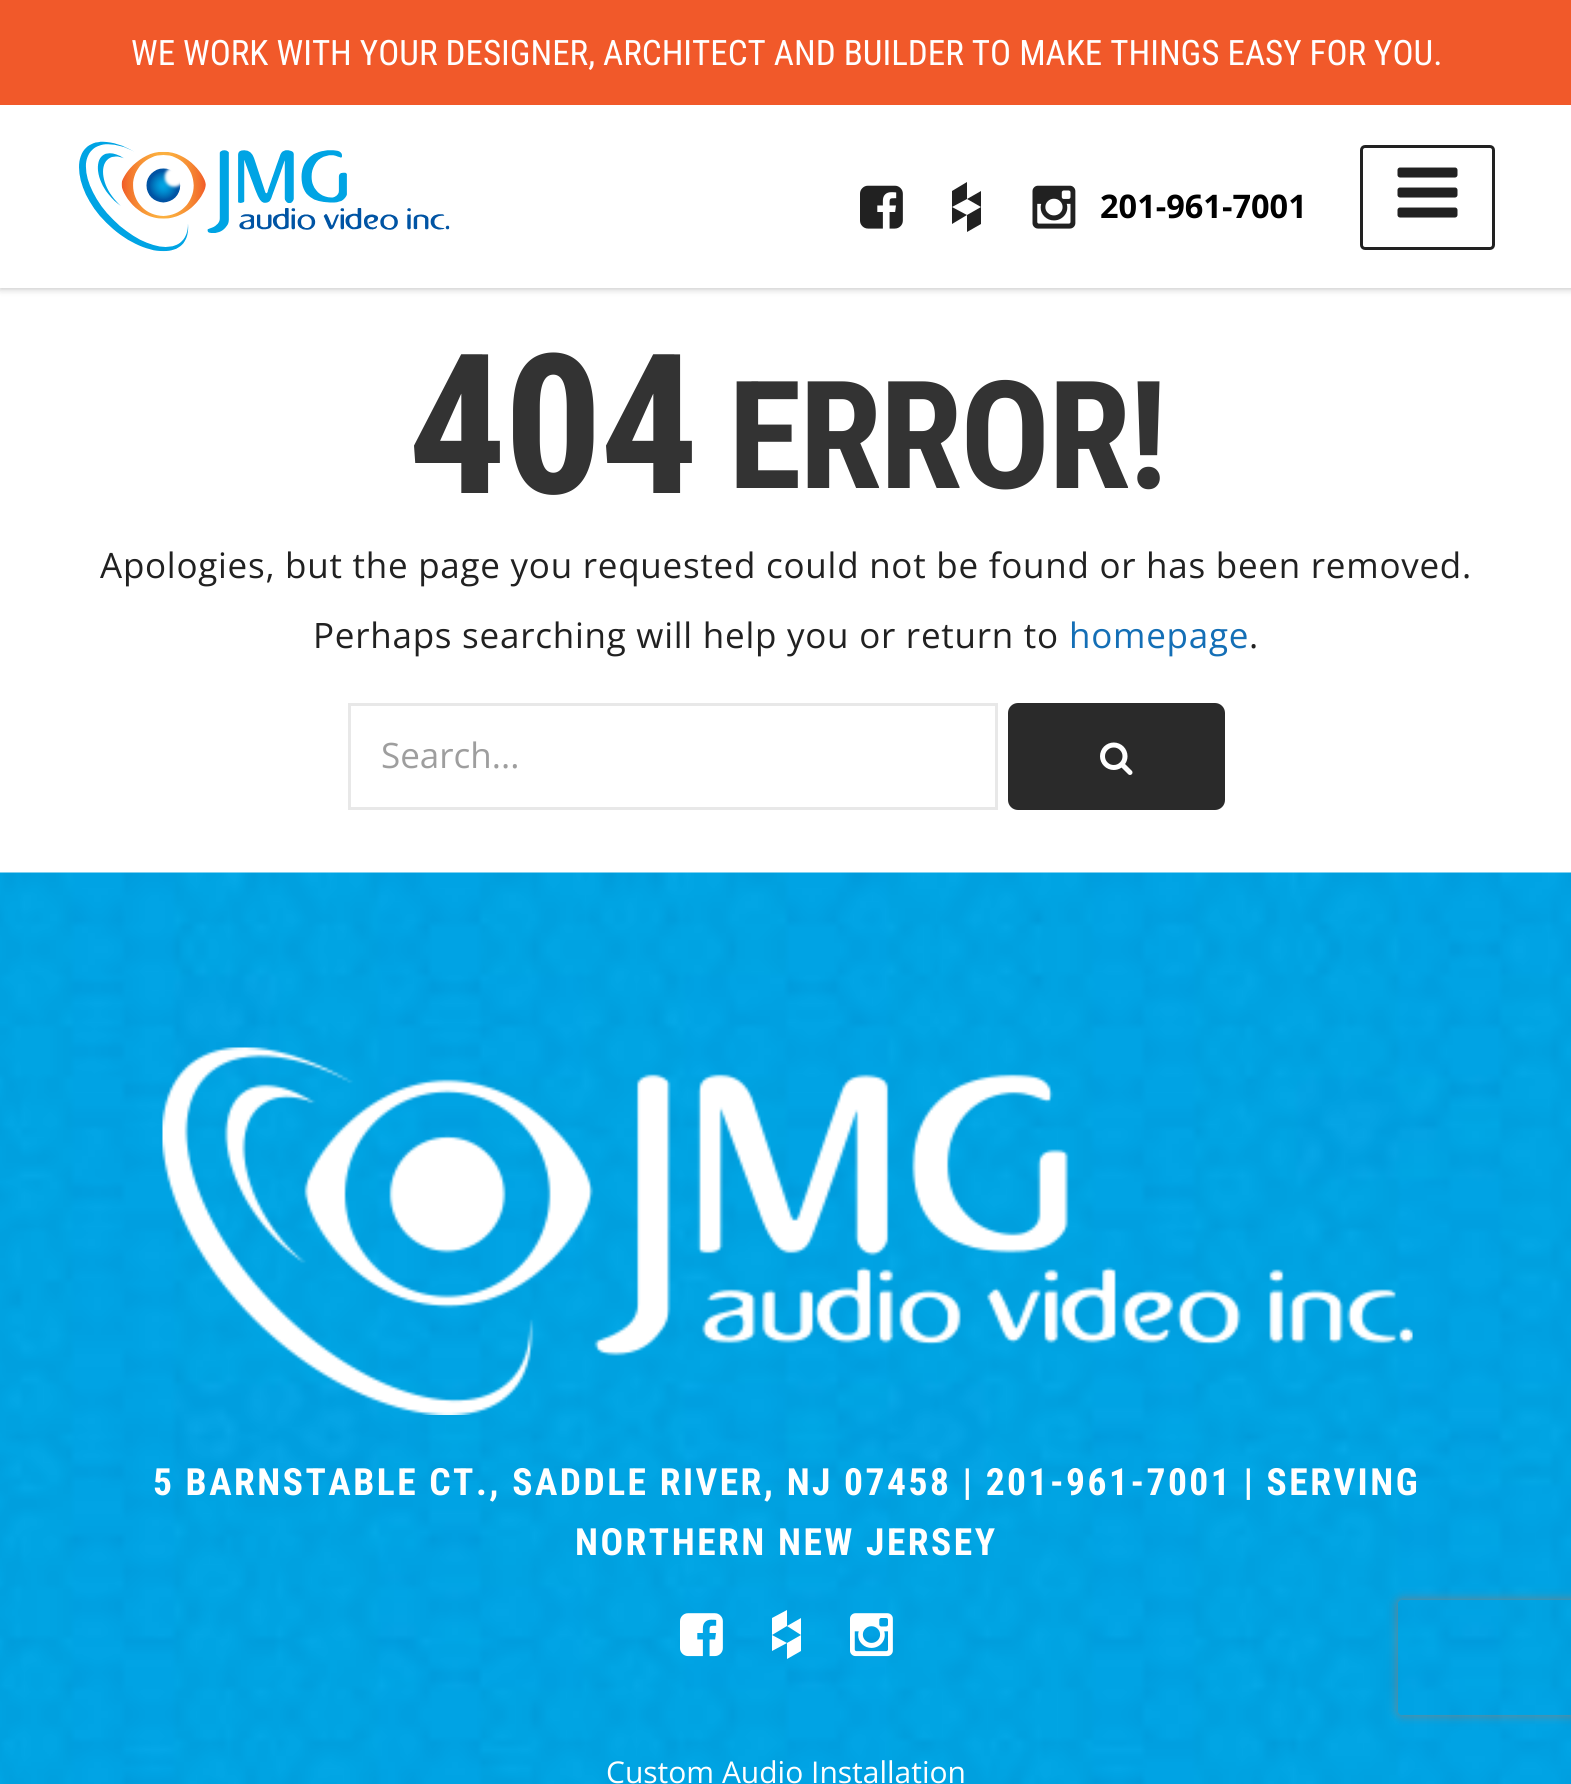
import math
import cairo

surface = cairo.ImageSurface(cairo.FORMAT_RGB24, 1571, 1784)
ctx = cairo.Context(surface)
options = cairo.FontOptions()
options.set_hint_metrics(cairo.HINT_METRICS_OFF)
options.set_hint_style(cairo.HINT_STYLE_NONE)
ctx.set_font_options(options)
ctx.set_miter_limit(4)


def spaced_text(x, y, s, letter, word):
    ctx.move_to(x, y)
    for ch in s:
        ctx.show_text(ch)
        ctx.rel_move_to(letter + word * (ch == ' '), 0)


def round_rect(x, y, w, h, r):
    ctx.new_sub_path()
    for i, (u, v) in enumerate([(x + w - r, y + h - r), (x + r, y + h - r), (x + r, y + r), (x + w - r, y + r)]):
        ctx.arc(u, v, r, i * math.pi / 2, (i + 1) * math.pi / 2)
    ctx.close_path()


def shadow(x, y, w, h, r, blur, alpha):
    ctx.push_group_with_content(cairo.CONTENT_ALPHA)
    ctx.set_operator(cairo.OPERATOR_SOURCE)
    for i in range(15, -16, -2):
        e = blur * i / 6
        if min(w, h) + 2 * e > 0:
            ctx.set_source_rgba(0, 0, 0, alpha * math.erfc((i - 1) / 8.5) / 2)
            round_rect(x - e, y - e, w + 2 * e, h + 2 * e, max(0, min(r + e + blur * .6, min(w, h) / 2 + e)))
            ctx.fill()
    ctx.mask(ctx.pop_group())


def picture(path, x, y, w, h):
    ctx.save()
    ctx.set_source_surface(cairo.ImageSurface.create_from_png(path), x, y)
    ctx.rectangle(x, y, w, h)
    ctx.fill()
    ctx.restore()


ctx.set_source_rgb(1, 1, 1)
ctx.paint()
ctx.save()
ctx.set_fill_rule(cairo.FILL_RULE_EVEN_ODD)
ctx.new_path()
ctx.move_to(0, 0)
ctx.line_to(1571, 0)
ctx.line_to(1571, 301)
ctx.line_to(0, 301)
ctx.close_path()
ctx.move_to(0, 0)
ctx.line_to(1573, 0)
ctx.line_to(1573, 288)
ctx.line_to(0, 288)
ctx.close_path()
ctx.clip()
ctx.set_source_rgb(0, 0, 0)
shadow(0, 0, 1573, 288, 0, 4, 0.3)
ctx.restore()
ctx.set_source_rgba(1, 1, 1, 0.7)
ctx.rectangle(0, 287, 1571, 1)
ctx.fill()
ctx.set_source_rgb(0.945, 0.349, 0.165)
ctx.rectangle(0, 0, 1571, 105)
ctx.fill()
ctx.select_font_face("Roboto Condensed")
ctx.set_font_size(35)
ctx.set_source_rgb(1, 1, 1)
ctx.move_to(131, 65)
ctx.show_text("WE WORK WITH YOUR DESIGNER, ARCHITECT AND BUILDER TO MAKE THINGS EASY FOR YOU.")
picture("img1.png", 79, 141, 371, 111)
picture("img2.png", 860, 185, 43, 44)
ctx.set_source_rgb(0.129, 0.129, 0.129)
ctx.new_path()
ctx.move_to(967, 215)
ctx.line_to(981, 207)
ctx.line_to(981, 224)
ctx.line_to(967, 232)
ctx.close_path()
ctx.move_to(952, 207)
ctx.line_to(952, 224)
ctx.line_to(967, 215)
ctx.close_path()
ctx.move_to(967, 182)
ctx.line_to(967, 199)
ctx.line_to(952, 207)
ctx.line_to(952, 191)
ctx.close_path()
ctx.move_to(967, 199)
ctx.line_to(981, 191)
ctx.line_to(981, 207)
ctx.close_path()
ctx.fill()
picture("img3.png", 1032, 185, 44, 44)
ctx.select_font_face("Open Sans", cairo.FONT_SLANT_NORMAL, cairo.FONT_WEIGHT_BOLD)
ctx.set_font_size(32.5)
ctx.set_source_rgb(0, 0, 0)
ctx.move_to(1100, 218)
ctx.show_text("201-961-7001")
round_rect(1361.5, 146.5, 132, 102, 3.5)
ctx.set_source_rgb(0.129, 0.129, 0.129)
ctx.set_line_width(3)
ctx.stroke()
picture("img4.png", 1397, 167, 61, 51)
ctx.select_font_face("Roboto Condensed", cairo.FONT_SLANT_NORMAL, cairo.FONT_WEIGHT_BOLD)
ctx.set_font_size(195)
ctx.set_source_rgb(0.2, 0.2, 0.2)
spaced_text(408, 493, "404", -2.5, 0)
ctx.set_font_size(150)
spaced_text(728, 488, "ERROR!", -2.5, 0)
ctx.select_font_face("Open Sans")
ctx.set_font_size(35)
ctx.set_source_rgb(0.129, 0.129, 0.129)
spaced_text(100, 578, "Apologies, but the page you requested could not be found or has been removed.", 0.75, 0)
spaced_text(313, 648, "Perhaps searching will help you or return to", 0.75, 0)
ctx.set_source_rgb(0.082, 0.435, 0.714)
spaced_text(1069, 648, "homepage", 0.75, 0)
ctx.set_source_rgb(0.129, 0.129, 0.129)
spaced_text(1249, 648, ".", 0.75, 0)
ctx.rectangle(349.5, 704.5, 647, 104)
ctx.set_source_rgb(0.91, 0.91, 0.91)
ctx.stroke()
ctx.set_source_rgb(0.62, 0.62, 0.62)
ctx.move_to(381, 768)
ctx.show_text("Search...")
ctx.set_source_rgb(0.165, 0.165, 0.165)
round_rect(1010.5, 705.5, 212, 102, 7.5)
ctx.fill_preserve()
ctx.set_line_width(5)
ctx.stroke()
picture("img5.png", 1100, 742, 33, 33)
picture("img6.png", 0, 872, 1571, 912)
picture("img7.png", 162, 1047, 1251, 368)
ctx.select_font_face("Roboto Condensed", cairo.FONT_SLANT_NORMAL, cairo.FONT_WEIGHT_BOLD)
ctx.set_font_size(37.5)
ctx.set_source_rgb(1, 1, 1)
spaced_text(153, 1495, "5 BARNSTABLE CT., SADDLE RIVER, NJ 07458 | 201-961-7001 | SERVING", 2.5, 0)
spaced_text(575, 1555, "NORTHERN NEW JERSEY", 2.5, 0)
picture("img8.png", 680, 1613, 43, 44)
ctx.new_path()
ctx.move_to(787, 1643)
ctx.line_to(801, 1635)
ctx.line_to(801, 1651)
ctx.line_to(787, 1659)
ctx.close_path()
ctx.move_to(772, 1635)
ctx.line_to(772, 1651)
ctx.line_to(787, 1643)
ctx.close_path()
ctx.move_to(787, 1610)
ctx.line_to(787, 1626)
ctx.line_to(772, 1635)
ctx.line_to(772, 1618)
ctx.close_path()
ctx.move_to(787, 1626)
ctx.line_to(801, 1618)
ctx.line_to(801, 1635)
ctx.close_path()
ctx.fill()
picture("img9.png", 850, 1613, 43, 44)
ctx.select_font_face("Open Sans")
ctx.set_font_size(30)
ctx.move_to(606, 1783)
ctx.show_text("Custom Audio Installation")
ctx.save()
ctx.set_fill_rule(cairo.FILL_RULE_EVEN_ODD)
ctx.new_path()
ctx.move_to(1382, 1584)
ctx.line_to(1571, 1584)
ctx.line_to(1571, 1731)
ctx.line_to(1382, 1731)
ctx.close_path()
ctx.move_to(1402, 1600)
ctx.line_to(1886, 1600)
ctx.curve_to(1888, 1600, 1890, 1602, 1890, 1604)
ctx.line_to(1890, 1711)
ctx.curve_to(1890, 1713, 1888, 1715, 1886, 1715)
ctx.line_to(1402, 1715)
ctx.curve_to(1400, 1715, 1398, 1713, 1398, 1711)
ctx.line_to(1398, 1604)
ctx.curve_to(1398, 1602, 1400, 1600, 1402, 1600)
ctx.close_path()
ctx.clip()
ctx.set_source_rgb(0.502, 0.502, 0.502)
shadow(1398, 1600, 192, 115, 4, 5, 1)
ctx.restore()
surface.write_to_png("page.png")
